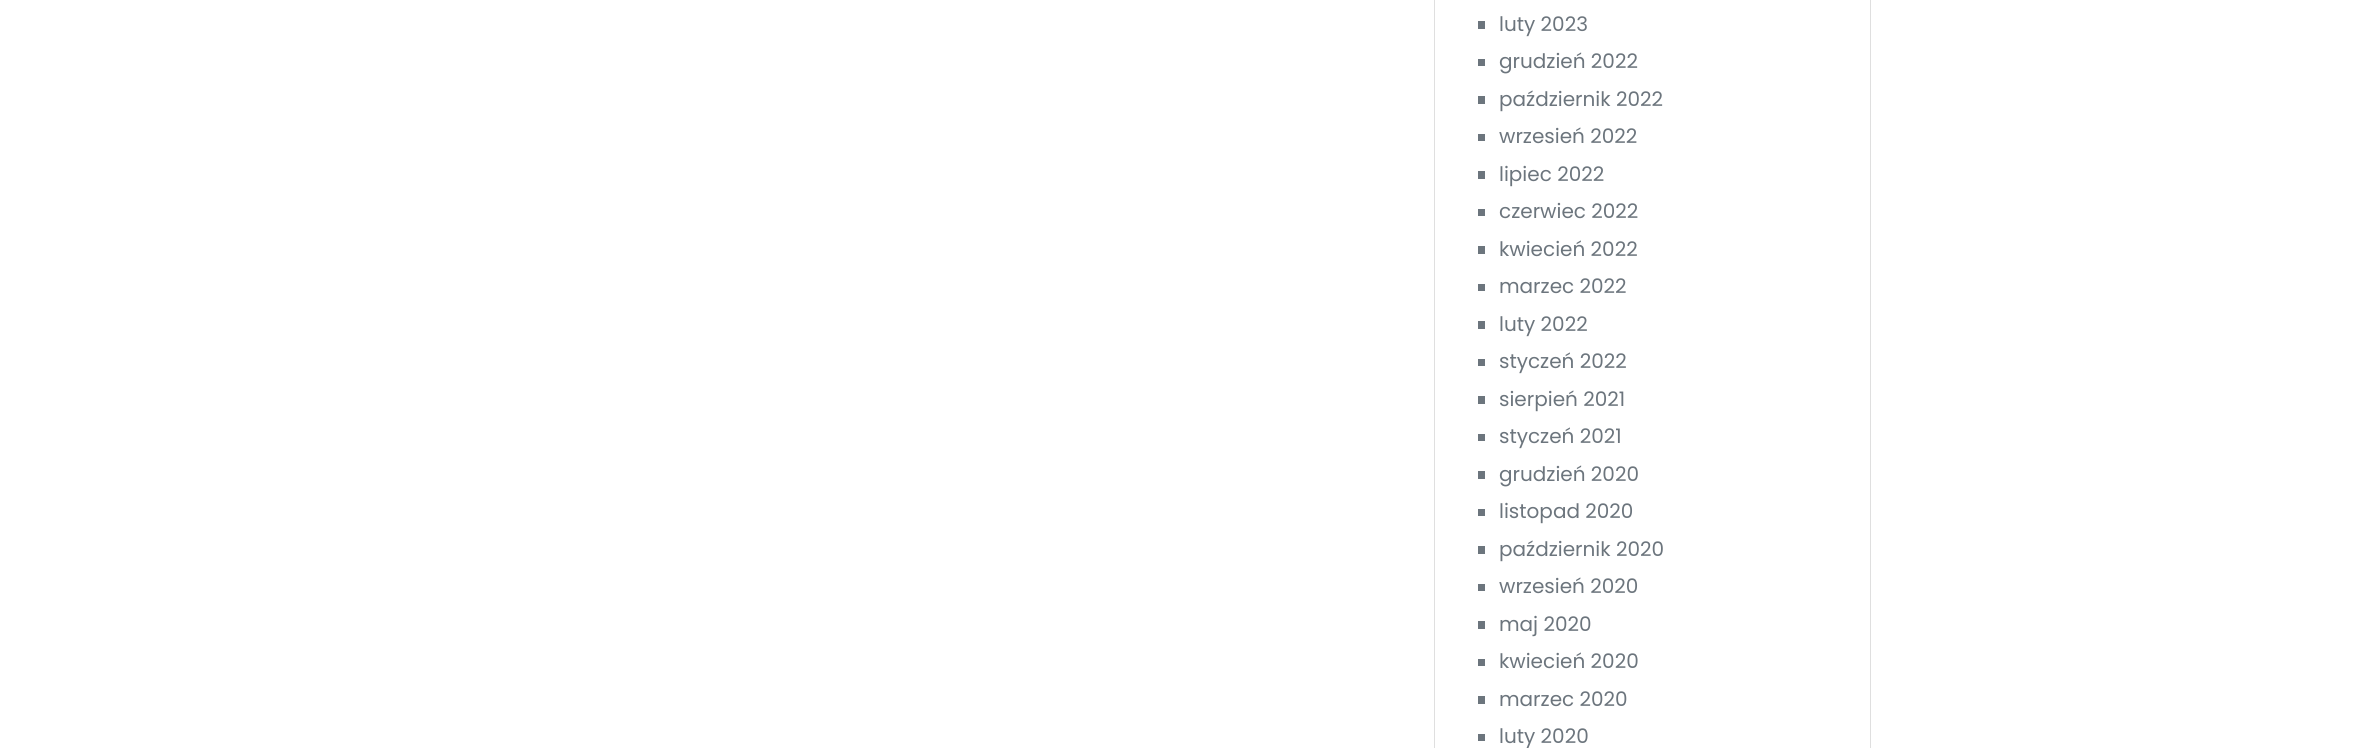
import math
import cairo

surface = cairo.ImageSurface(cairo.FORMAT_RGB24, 2353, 748)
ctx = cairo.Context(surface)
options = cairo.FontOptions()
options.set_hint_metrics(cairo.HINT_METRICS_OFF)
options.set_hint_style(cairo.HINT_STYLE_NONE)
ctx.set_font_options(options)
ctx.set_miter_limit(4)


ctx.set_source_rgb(1, 1, 1)
ctx.paint()
ctx.rectangle(1434.5, -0.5, 436, 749)
ctx.set_source_rgb(0.875, 0.875, 0.875)
ctx.set_line_width(1)
ctx.stroke()
ctx.set_source_rgb(0.424, 0.459, 0.49)
ctx.rectangle(1478, 21, 7, 8)
ctx.fill()
ctx.select_font_face("Poppins")
ctx.set_font_size(20)
ctx.move_to(1499, 31)
ctx.show_text("luty 2023")
ctx.rectangle(1478, 59, 7, 7)
ctx.fill()
ctx.move_to(1499, 68)
ctx.show_text("grudzień 2022")
ctx.rectangle(1478, 96, 7, 8)
ctx.fill()
ctx.move_to(1499, 106)
ctx.show_text("październik 2022")
ctx.rectangle(1478, 134, 7, 7)
ctx.fill()
ctx.move_to(1499, 143)
ctx.show_text("wrzesień 2022")
ctx.rectangle(1478, 171, 7, 8)
ctx.fill()
ctx.move_to(1499, 181)
ctx.show_text("lipiec 2022")
ctx.rectangle(1478, 209, 7, 7)
ctx.fill()
ctx.move_to(1499, 218)
ctx.show_text("czerwiec 2022")
ctx.rectangle(1478, 246, 7, 8)
ctx.fill()
ctx.move_to(1499, 256)
ctx.show_text("kwiecień 2022")
ctx.rectangle(1478, 284, 7, 7)
ctx.fill()
ctx.move_to(1499, 293)
ctx.show_text("marzec 2022")
ctx.rectangle(1478, 321, 7, 8)
ctx.fill()
ctx.move_to(1499, 331)
ctx.show_text("luty 2022")
ctx.rectangle(1478, 359, 7, 7)
ctx.fill()
ctx.move_to(1499, 368)
ctx.show_text("styczeń 2022")
ctx.rectangle(1478, 396, 7, 8)
ctx.fill()
ctx.move_to(1499, 406)
ctx.show_text("sierpień 2021")
ctx.rectangle(1478, 434, 7, 7)
ctx.fill()
ctx.move_to(1499, 443)
ctx.show_text("styczeń 2021")
ctx.rectangle(1478, 471, 7, 8)
ctx.fill()
ctx.move_to(1499, 481)
ctx.show_text("grudzień 2020")
ctx.rectangle(1478, 509, 7, 7)
ctx.fill()
ctx.move_to(1499, 518)
ctx.show_text("listopad 2020")
ctx.rectangle(1478, 546, 7, 8)
ctx.fill()
ctx.move_to(1499, 556)
ctx.show_text("październik 2020")
ctx.rectangle(1478, 584, 7, 7)
ctx.fill()
ctx.move_to(1499, 593)
ctx.show_text("wrzesień 2020")
ctx.rectangle(1478, 621, 7, 8)
ctx.fill()
ctx.move_to(1499, 631)
ctx.show_text("maj 2020")
ctx.rectangle(1478, 659, 7, 7)
ctx.fill()
ctx.move_to(1499, 668)
ctx.show_text("kwiecień 2020")
ctx.rectangle(1478, 696, 7, 8)
ctx.fill()
ctx.move_to(1499, 706)
ctx.show_text("marzec 2020")
ctx.rectangle(1478, 734, 7, 7)
ctx.fill()
ctx.move_to(1499, 743)
ctx.show_text("luty 2020")
surface.write_to_png("page.png")
